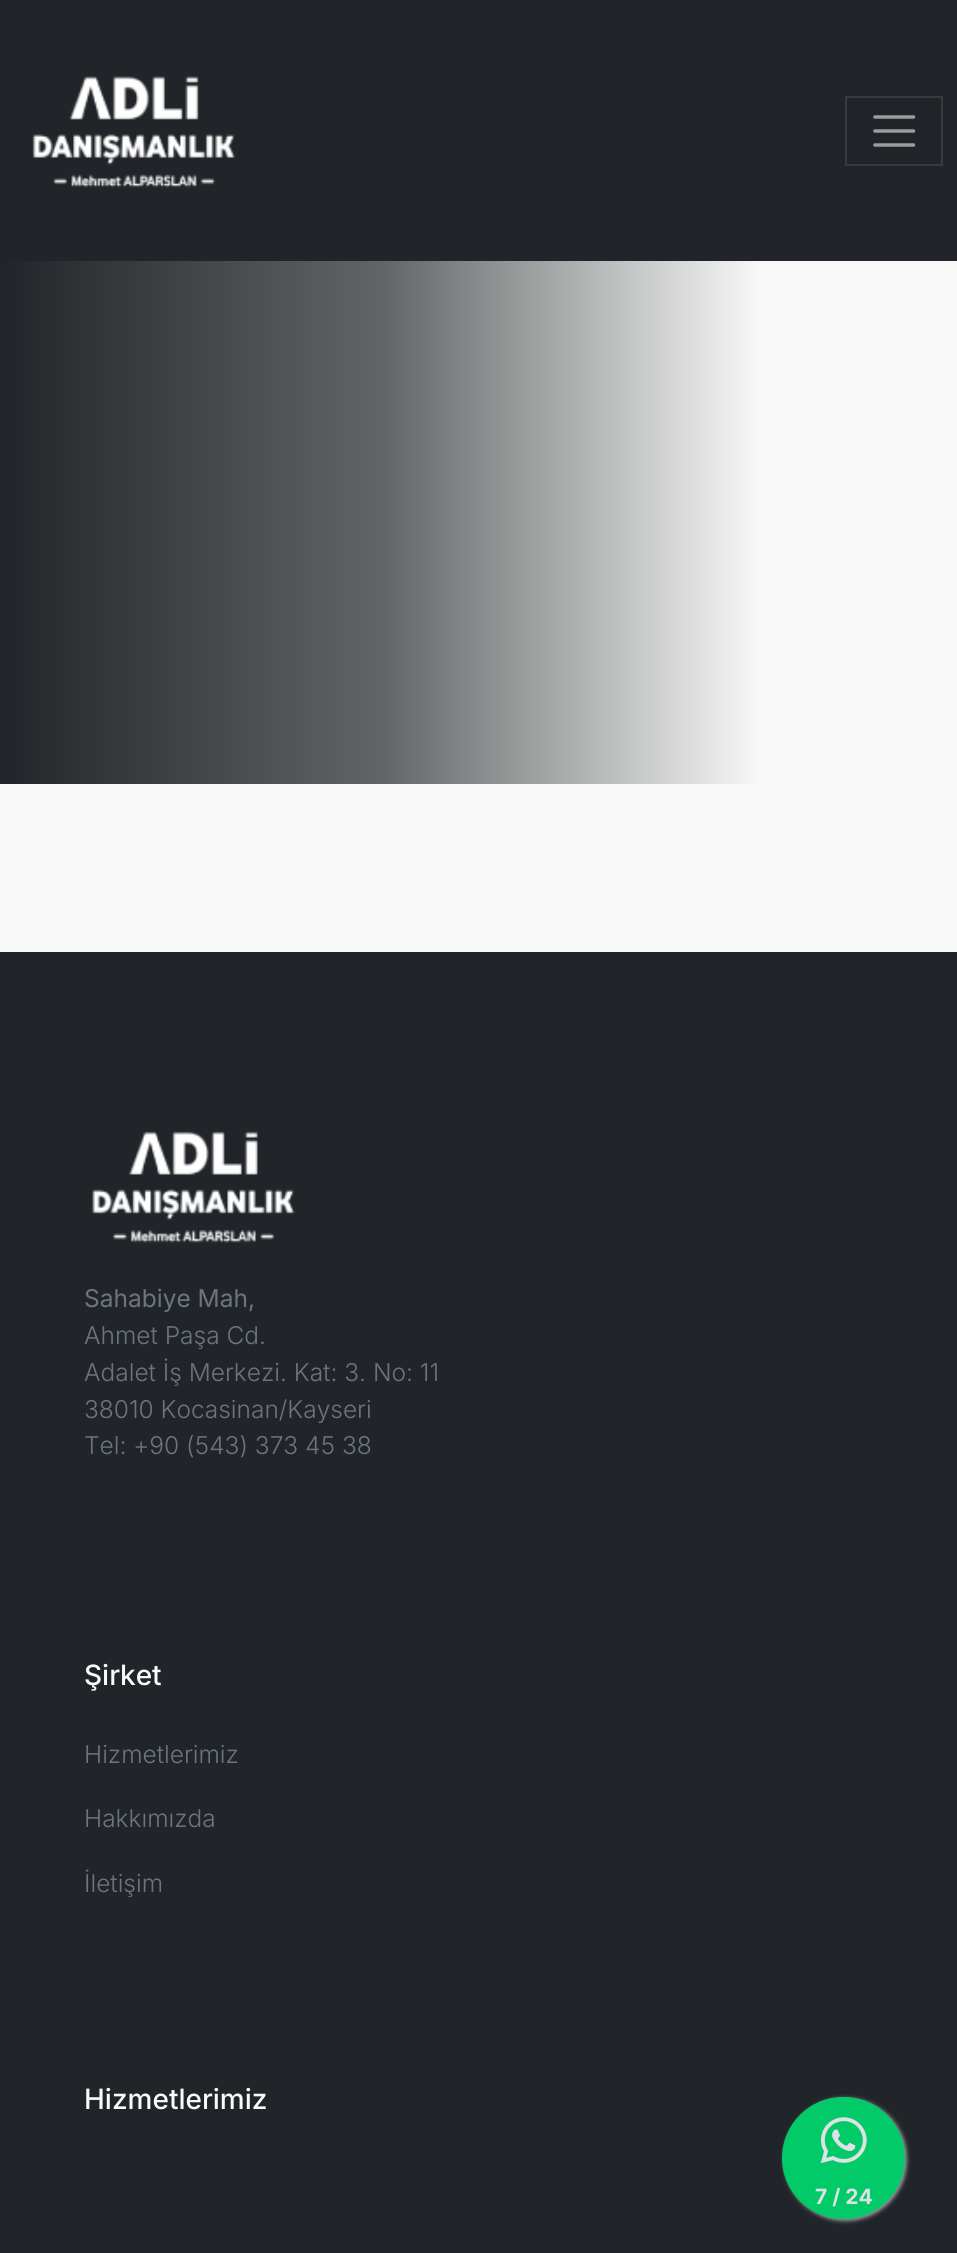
import math
import cairo

surface = cairo.ImageSurface(cairo.FORMAT_RGB24, 957, 2253)
ctx = cairo.Context(surface)
options = cairo.FontOptions()
options.set_hint_metrics(cairo.HINT_METRICS_OFF)
options.set_hint_style(cairo.HINT_STYLE_NONE)
ctx.set_font_options(options)
ctx.set_miter_limit(4)


def round_rect(x, y, w, h, r):
    ctx.new_sub_path()
    for i, (u, v) in enumerate([(x + w - r, y + h - r), (x + r, y + h - r), (x + r, y + r), (x + w - r, y + r)]):
        ctx.arc(u, v, r, i * math.pi / 2, (i + 1) * math.pi / 2)
    ctx.close_path()


def shadow(x, y, w, h, r, blur, alpha):
    ctx.push_group_with_content(cairo.CONTENT_ALPHA)
    ctx.set_operator(cairo.OPERATOR_SOURCE)
    for i in range(15, -16, -2):
        e = blur * i / 6
        if min(w, h) + 2 * e > 0:
            ctx.set_source_rgba(0, 0, 0, alpha * math.erfc((i - 1) / 8.5) / 2)
            round_rect(x - e, y - e, w + 2 * e, h + 2 * e, max(0, min(r + e + blur * .6, min(w, h) / 2 + e)))
            ctx.fill()
    ctx.mask(ctx.pop_group())


def picture(path, x, y, w, h):
    ctx.save()
    ctx.set_source_surface(cairo.ImageSurface.create_from_png(path), x, y)
    ctx.rectangle(x, y, w, h)
    ctx.fill()
    ctx.restore()


ctx.set_source_rgb(0.973, 0.976, 0.98)
ctx.paint()
ctx.set_source_rgb(0.129, 0.145, 0.161)
ctx.rectangle(0, 0, 957, 261)
ctx.fill()
picture("img1.png", 32, 76, 203, 112)
ctx.rectangle(846, 97, 96, 68)
ctx.set_source_rgb(0.216, 0.231, 0.243)
ctx.stroke()
ctx.new_path()
ctx.move_to(875, 117)
ctx.line_to(913.5, 117)
ctx.move_to(875, 131)
ctx.line_to(913.5, 131)
ctx.move_to(875, 145)
ctx.line_to(913.5, 145)
ctx.set_source_rgb(0.608, 0.616, 0.624)
ctx.set_line_width(3.5)
ctx.set_line_cap(cairo.LINE_CAP_ROUND)
ctx.stroke()
gradient = cairo.LinearGradient(957, 434, 0, 434)
gradient.add_color_stop_rgba(0.2, 0.98, 0.98, 0.98, 1)
gradient.add_color_stop_rgba(0.6, 0.384, 0.396, 0.4, 1)
gradient.add_color_stop_rgba(1, 0.129, 0.145, 0.161, 1)
ctx.set_source(gradient)
ctx.rectangle(0, 261, 759, 523)
ctx.fill()
ctx.set_source_rgb(0.129, 0.145, 0.161)
ctx.rectangle(0, 952, 957, 1301)
ctx.fill()
picture("img2.png", 92, 1131, 203, 112)
ctx.select_font_face("Inter")
ctx.set_font_size(24.5)
ctx.set_source_rgb(0.424, 0.459, 0.49)
ctx.move_to(84, 1307)
ctx.show_text("Sahabiye Mah,")
ctx.select_font_face("Inter Light")
ctx.move_to(84, 1344)
ctx.show_text("Ahmet Paşa Cd.")
ctx.move_to(84, 1381)
ctx.show_text("Adalet İş Merkezi. Kat: 3. No: 11")
ctx.move_to(84, 1418)
ctx.show_text("38010 Kocasinan/Kayseri")
ctx.move_to(84, 1454)
ctx.show_text("Tel: +90 (543) 373 45 38")
ctx.select_font_face("Inter Medium")
ctx.set_font_size(28)
ctx.set_source_rgb(0.973, 0.976, 0.98)
ctx.move_to(84, 1685)
ctx.show_text("Şirket")
ctx.select_font_face("Inter Light")
ctx.set_font_size(24.5)
ctx.set_source_rgb(0.424, 0.459, 0.49)
ctx.move_to(84, 1763)
ctx.show_text("Hizmetlerimiz")
ctx.move_to(84, 1827)
ctx.show_text("Hakkımızda")
ctx.move_to(84, 1892)
ctx.show_text("İletişim")
ctx.select_font_face("Inter Medium")
ctx.set_font_size(28)
ctx.set_source_rgb(0.973, 0.976, 0.98)
ctx.move_to(84, 2109)
ctx.show_text("Hizmetlerimiz")
ctx.set_source_rgb(0.6, 0.6, 0.6)
shadow(784, 2098, 123, 123, 61.5, 2, 1)
ctx.set_source_rgb(0.008, 0.792, 0.412)
round_rect(782, 2097, 123, 122, 61)
ctx.fill()
picture("img3.png", 820, 2117, 47, 47)
ctx.select_font_face("Inter", cairo.FONT_SLANT_NORMAL, cairo.FONT_WEIGHT_BOLD)
ctx.set_font_size(21)
ctx.set_source_rgb(0.871, 0.886, 0.902)
ctx.move_to(815, 2204)
ctx.show_text("7 / 24")
surface.write_to_png("page.png")
